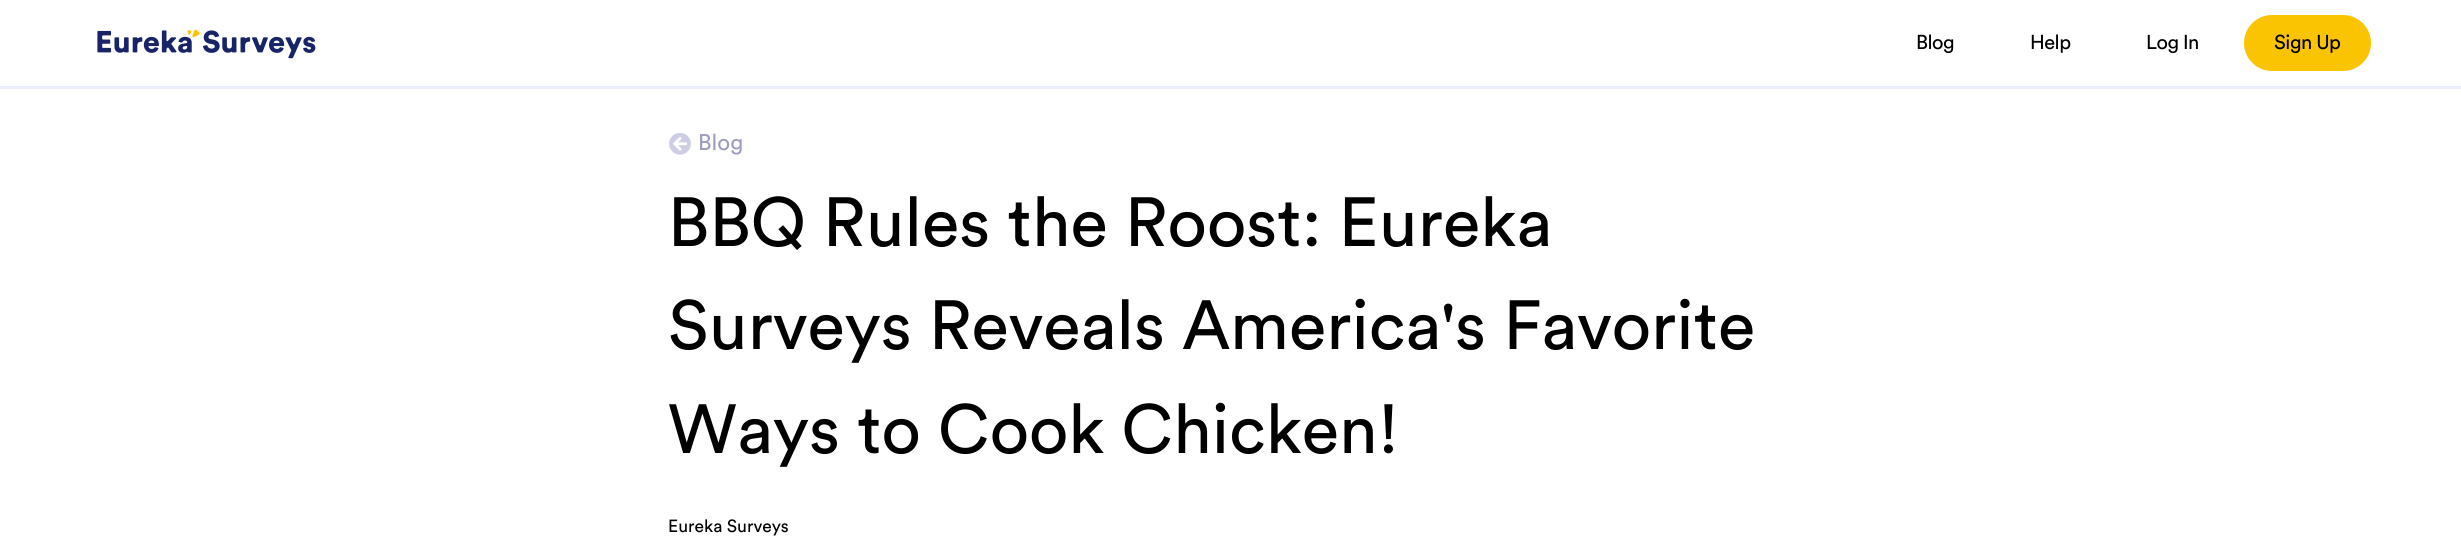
import math
import cairo

surface = cairo.ImageSurface(cairo.FORMAT_RGB24, 2461, 538)
ctx = cairo.Context(surface)
options = cairo.FontOptions()
options.set_hint_metrics(cairo.HINT_METRICS_OFF)
options.set_hint_style(cairo.HINT_STYLE_NONE)
ctx.set_font_options(options)
ctx.set_miter_limit(4)


def spaced_text(x, y, s, letter, word):
    ctx.move_to(x, y)
    for ch in s:
        ctx.show_text(ch)
        ctx.rel_move_to(letter + word * (ch == ' '), 0)


def round_rect(x, y, w, h, r):
    ctx.new_sub_path()
    for i, (u, v) in enumerate([(x + w - r, y + h - r), (x + r, y + h - r), (x + r, y + r), (x + w - r, y + r)]):
        ctx.arc(u, v, r, i * math.pi / 2, (i + 1) * math.pi / 2)
    ctx.close_path()


def picture(path, x, y, w, h):
    ctx.save()
    ctx.set_source_surface(cairo.ImageSurface.create_from_png(path), x, y)
    ctx.rectangle(x, y, w, h)
    ctx.fill()
    ctx.restore()


ctx.set_source_rgb(1, 1, 1)
ctx.paint()
ctx.set_source_rgb(0.925, 0.925, 1)
ctx.rectangle(0, 86, 2461, 3)
ctx.fill()
picture("img1.png", 97, 29, 219, 30)
ctx.select_font_face("Circular")
ctx.set_font_size(20)
ctx.set_source_rgb(0, 0, 0)
spaced_text(1916, 49, "Blog", -0.5, 0)
spaced_text(2030, 49, "Help", -0.5, 0)
spaced_text(2146, 49, "Log In", -0.5, 0)
ctx.set_source_rgb(0.984, 0.769, 0.012)
round_rect(2244, 15, 127, 56, 28)
ctx.fill()
ctx.set_source_rgb(0, 0, 0)
spaced_text(2274, 49, "Sign Up", -0.5, 0)
picture("img2.png", 669, 133, 22, 22)
ctx.set_font_size(22.5)
ctx.set_source_rgb(0.616, 0.616, 0.757)
ctx.move_to(698, 150)
ctx.show_text("Blog")
ctx.set_font_size(68.75)
ctx.set_source_rgb(0, 0, 0)
ctx.move_to(668, 246)
ctx.show_text("BBQ Rules the Roost: Eureka")
ctx.move_to(668, 349)
ctx.show_text("Surveys Reveals America's Favorite")
ctx.move_to(668, 453)
ctx.show_text("Ways to Cook Chicken!")
ctx.set_font_size(17.5)
ctx.move_to(668, 532)
ctx.show_text("Eureka Surveys")
surface.write_to_png("page.png")
